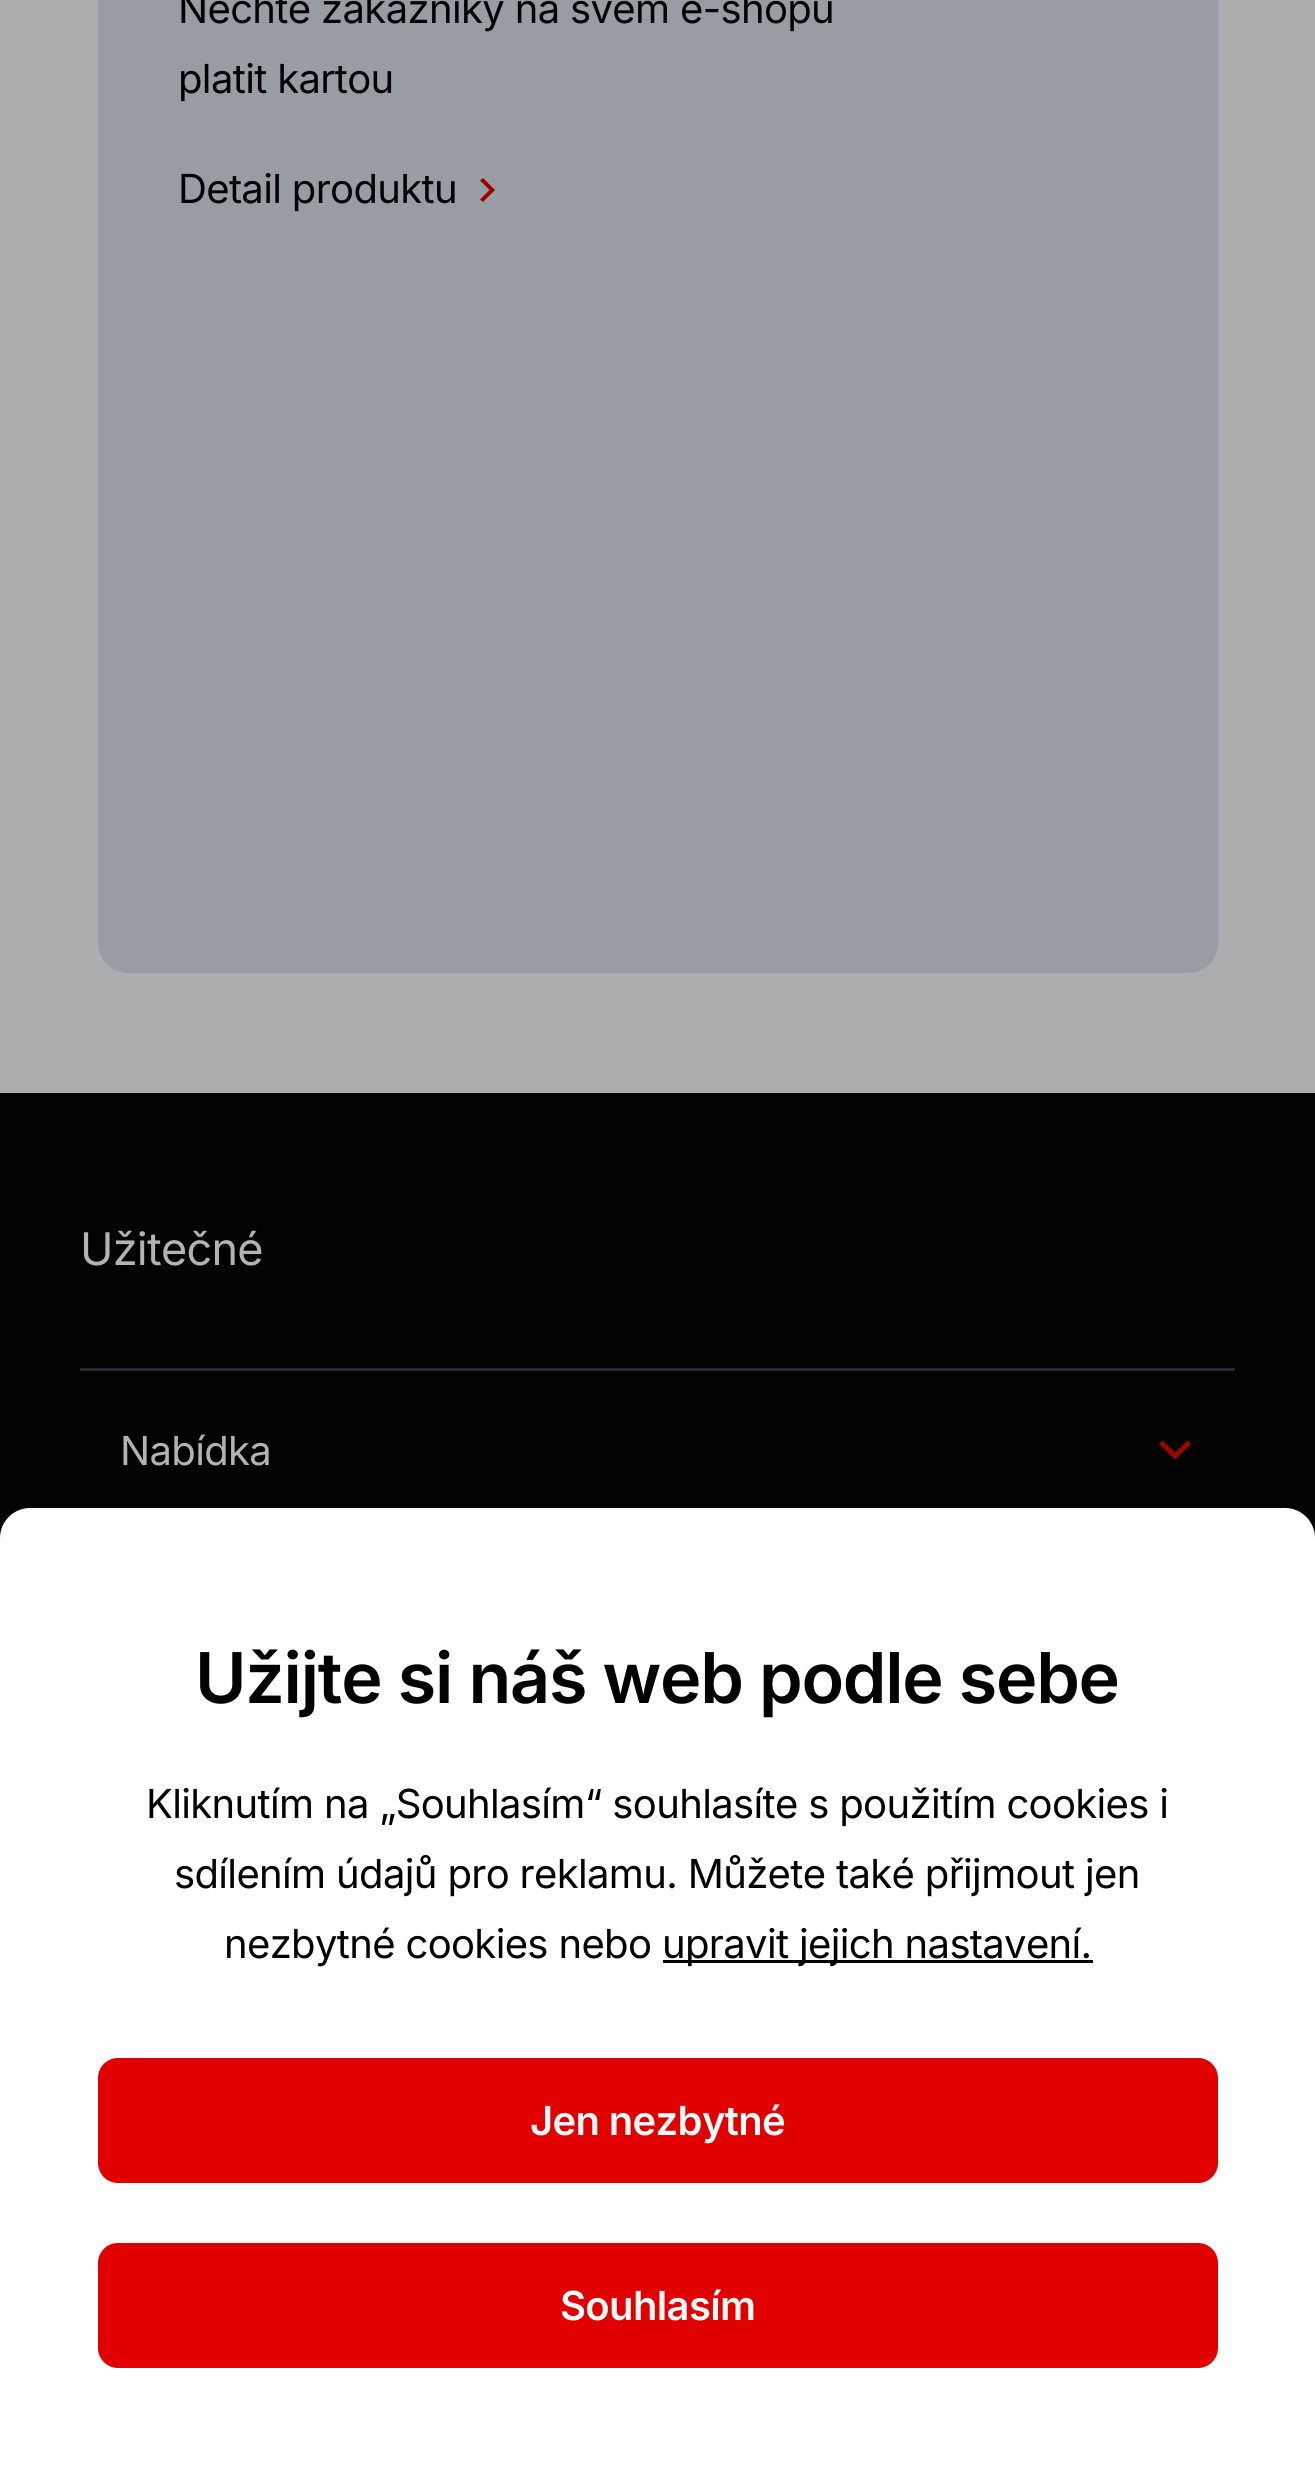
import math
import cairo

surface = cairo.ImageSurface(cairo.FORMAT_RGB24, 1315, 2486)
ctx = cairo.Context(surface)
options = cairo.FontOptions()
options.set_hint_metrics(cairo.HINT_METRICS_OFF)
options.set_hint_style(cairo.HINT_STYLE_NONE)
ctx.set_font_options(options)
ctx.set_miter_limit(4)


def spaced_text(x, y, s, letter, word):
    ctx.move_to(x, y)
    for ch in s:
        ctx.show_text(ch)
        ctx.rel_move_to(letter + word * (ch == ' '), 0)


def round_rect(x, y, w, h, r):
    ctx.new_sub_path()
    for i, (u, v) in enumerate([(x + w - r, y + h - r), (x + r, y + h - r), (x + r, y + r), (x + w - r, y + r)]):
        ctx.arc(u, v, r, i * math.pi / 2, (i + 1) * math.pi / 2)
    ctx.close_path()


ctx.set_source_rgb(0.671, 0.678, 0.686)
ctx.paint()
ctx.set_source_rgb(0.596, 0.616, 0.639)
round_rect(98, -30, 1120, 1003, 30)
ctx.fill()
ctx.select_font_face("Inter")
ctx.set_font_size(40)
ctx.set_source_rgb(0.008, 0.008, 0.012)
spaced_text(178, 23, "Nechte zákazníky na svém e-shopu", -0.65, 0)
spaced_text(178, 93, "platit kartou", -0.65, 0)
spaced_text(178, 203, "Detail produktu", -0.65, 0)
ctx.set_source_rgb(0.616, 0.004, 0.004)
ctx.new_path()
ctx.move_to(489.5, 190)
ctx.line_to(480, 180.5)
ctx.line_to(483, 178)
ctx.line_to(495, 190)
ctx.line_to(483, 202)
ctx.line_to(480, 199.5)
ctx.close_path()
ctx.fill()
ctx.set_source_rgb(0.008, 0.008, 0.012)
ctx.rectangle(0, 1093, 1315, 445)
ctx.fill()
ctx.set_font_size(45)
ctx.set_source_rgb(0.702, 0.702, 0.702)
spaced_text(80, 1265, "Užitečné", -0.75, 0)
ctx.set_source_rgb(0.145, 0.165, 0.188)
ctx.rectangle(80, 1368, 1155, 3)
ctx.fill()
ctx.set_font_size(40)
ctx.set_source_rgb(0.702, 0.702, 0.702)
spaced_text(120, 1465, "Nabídka", -0.65, 0)
ctx.set_source_rgb(0.616, 0.004, 0.004)
ctx.new_path()
ctx.move_to(1175, 1452.5)
ctx.line_to(1187.5, 1440.5)
ctx.line_to(1191, 1444)
ctx.line_to(1175, 1459.5)
ctx.line_to(1159, 1444)
ctx.line_to(1162.5, 1440.5)
ctx.close_path()
ctx.fill()
ctx.set_source_rgb(1, 1, 1)
ctx.new_path()
ctx.move_to(30, 1508)
ctx.line_to(1285, 1508)
ctx.curve_to(1301.5, 1508, 1315, 1521.5, 1315, 1538)
ctx.line_to(1315, 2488)
ctx.line_to(0, 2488)
ctx.line_to(0, 1538)
ctx.curve_to(0, 1521.5, 13.5, 1508, 30, 1508)
ctx.close_path()
ctx.fill()
ctx.select_font_face("Inter SemiBold")
ctx.set_font_size(70)
ctx.set_source_rgb(0.008, 0.008, 0.012)
spaced_text(195, 1703, "Užijte si náš web podle sebe", -1.25, 0)
ctx.select_font_face("Inter")
ctx.set_font_size(40)
spaced_text(146, 1818, "Kliknutím na „Souhlasím“ souhlasíte s použitím cookies i", -0.65, 0)
spaced_text(174, 1888, "sdílením údajů pro reklamu. Můžete také přijmout jen", -0.65, 0)
spaced_text(224, 1958, "nezbytné cookies nebo", -0.65, 0)
ctx.rectangle(663, 1960, 430, 3)
ctx.fill()
spaced_text(662, 1958, "upravit jejich nastavení.", -0.65, 0)
ctx.set_source_rgb(0.878, 0, 0)
round_rect(99.5, 2059.5, 1117, 122, 18.5)
ctx.fill_preserve()
ctx.set_line_width(3)
ctx.stroke()
ctx.select_font_face("Inter SemiBold")
ctx.set_source_rgb(0.976, 0.976, 0.976)
spaced_text(530, 2135, "Jen nezbytné", -0.65, 0)
ctx.set_source_rgb(0.878, 0, 0)
round_rect(99.5, 2244.5, 1117, 122, 18.5)
ctx.fill_preserve()
ctx.stroke()
ctx.set_source_rgb(0.976, 0.976, 0.976)
spaced_text(560, 2320, "Souhlasím", -0.65, 0)
surface.write_to_png("page.png")
